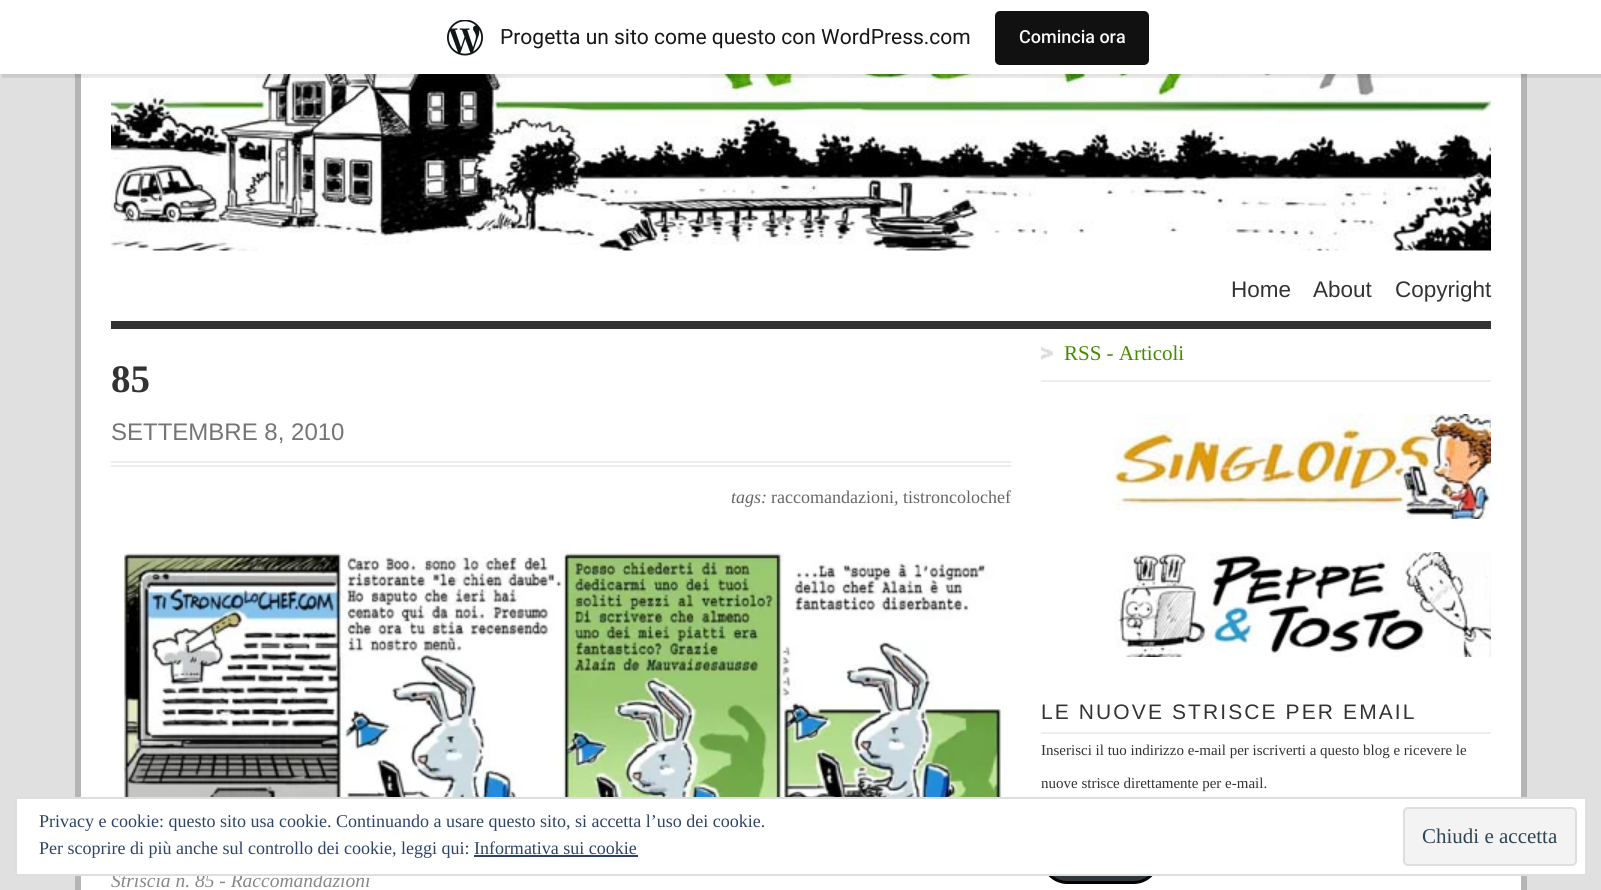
import math
import cairo

surface = cairo.ImageSurface(cairo.FORMAT_RGB24, 1601, 890)
ctx = cairo.Context(surface)
options = cairo.FontOptions()
options.set_hint_metrics(cairo.HINT_METRICS_OFF)
options.set_hint_style(cairo.HINT_STYLE_NONE)
ctx.set_font_options(options)
ctx.set_miter_limit(4)


def spaced_text(x, y, s, letter, word):
    ctx.move_to(x, y)
    for ch in s:
        ctx.show_text(ch)
        ctx.rel_move_to(letter + word * (ch == ' '), 0)


def round_rect(x, y, w, h, r):
    ctx.new_sub_path()
    for i, (u, v) in enumerate([(x + w - r, y + h - r), (x + r, y + h - r), (x + r, y + r), (x + w - r, y + r)]):
        ctx.arc(u, v, r, i * math.pi / 2, (i + 1) * math.pi / 2)
    ctx.close_path()


def shadow(x, y, w, h, r, blur, alpha):
    ctx.push_group_with_content(cairo.CONTENT_ALPHA)
    ctx.set_operator(cairo.OPERATOR_SOURCE)
    for i in range(15, -16, -2):
        e = blur * i / 6
        if min(w, h) + 2 * e > 0:
            ctx.set_source_rgba(0, 0, 0, alpha * math.erfc((i - 1) / 8.5) / 2)
            round_rect(x - e, y - e, w + 2 * e, h + 2 * e, max(0, min(r + e + blur * .6, min(w, h) / 2 + e)))
            ctx.fill()
    ctx.mask(ctx.pop_group())


def picture(path, x, y, w, h):
    ctx.save()
    ctx.set_source_surface(cairo.ImageSurface.create_from_png(path), x, y)
    ctx.rectangle(x, y, w, h)
    ctx.fill()
    ctx.restore()


ctx.set_source_rgb(0.878, 0.878, 0.878)
ctx.paint()
ctx.set_source_rgb(1, 1, 1)
ctx.rectangle(81, 74, 1440, 816)
ctx.fill()
ctx.set_source_rgb(0.71, 0.71, 0.71)
ctx.rectangle(1521, 74, 6, 816)
ctx.fill()
ctx.rectangle(75, 74, 6, 816)
ctx.fill()
picture("img2.png", 111, 74, 1380, 177)
ctx.set_source_rgb(0, 0, 0)
shadow(0, 2, 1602, 73, 0, 1.5, 0.05)
ctx.set_source_rgba(0, 0, 0, 0.08)
ctx.new_path()
ctx.move_to(2, 74)
ctx.line_to(2, 78)
ctx.line_to(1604, 78)
ctx.line_to(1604, 5)
ctx.line_to(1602, 5)
ctx.line_to(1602, 74)
ctx.close_path()
ctx.fill()
ctx.set_source_rgb(1, 1, 1)
ctx.rectangle(0, 0, 1601, 74)
ctx.fill()
picture("img1.png", 447, 20, 36, 36)
ctx.select_font_face("Roboto")
ctx.set_font_size(21)
ctx.set_source_rgb(0.09, 0.09, 0.09)
ctx.move_to(500, 44)
ctx.show_text("Progetta un sito come questo con WordPress.com")
ctx.set_source_rgb(0.067, 0.067, 0.067)
round_rect(995, 11, 154, 54, 5)
ctx.fill()
ctx.select_font_face("Roboto Medium")
ctx.set_font_size(18)
ctx.set_source_rgb(0.965, 0.969, 0.969)
ctx.move_to(1019, 43)
ctx.show_text("Comincia ora")
ctx.set_source_rgb(0.2, 0.2, 0.2)
ctx.rectangle(111, 321, 1380, 8)
ctx.fill()
ctx.select_font_face("Liberation Sans")
ctx.set_font_size(22.5)
ctx.move_to(1231, 297)
ctx.show_text("Home")
ctx.move_to(1313, 297)
ctx.show_text("About")
ctx.move_to(1395, 297)
ctx.show_text("Copyright")
ctx.set_source_rgb(0.933, 0.933, 0.933)
ctx.rectangle(111, 461, 900, 2)
ctx.fill()
ctx.rectangle(111, 465, 900, 2)
ctx.fill()
ctx.select_font_face("Liberation Serif", cairo.FONT_SLANT_NORMAL, cairo.FONT_WEIGHT_BOLD)
ctx.set_font_size(39)
ctx.set_source_rgb(0.2, 0.2, 0.2)
ctx.move_to(111, 392)
ctx.show_text("85")
ctx.select_font_face("Liberation Sans")
ctx.set_font_size(24)
ctx.set_source_rgb(0.459, 0.459, 0.459)
ctx.move_to(111, 440)
ctx.show_text("SETTEMBRE 8, 2010")
ctx.select_font_face("Liberation Serif", cairo.FONT_SLANT_ITALIC)
ctx.set_font_size(18)
ctx.set_source_rgb(0.4, 0.4, 0.4)
ctx.move_to(731, 503)
ctx.show_text("tags:")
ctx.select_font_face("Liberation Serif")
ctx.move_to(771, 503)
ctx.show_text("raccomandazioni")
ctx.select_font_face("Liberation Serif", cairo.FONT_SLANT_ITALIC)
ctx.move_to(894, 503)
ctx.show_text(",")
ctx.select_font_face("Liberation Serif")
ctx.move_to(903, 503)
ctx.show_text("tistroncolochef")
picture("img3.png", 122, 551, 882, 246)
ctx.select_font_face("Liberation Serif", cairo.FONT_SLANT_ITALIC)
ctx.set_font_size(19.5)
ctx.set_source_rgb(0.533, 0.533, 0.533)
ctx.move_to(111, 887)
ctx.show_text("Striscia n. 85 - Raccomandazioni")
ctx.set_source_rgb(0.933, 0.933, 0.933)
ctx.rectangle(1041, 380, 450, 2)
ctx.fill()
picture("img4.png", 1041, 346, 12, 15)
ctx.select_font_face("Liberation Serif")
ctx.set_font_size(21)
ctx.set_source_rgb(0.271, 0.545, 0)
ctx.move_to(1064, 360)
ctx.show_text("RSS - Articoli")
picture("img5.png", 1112, 414, 379, 105)
picture("img6.png", 1114, 552, 377, 105)
ctx.set_source_rgb(0.933, 0.933, 0.933)
ctx.rectangle(1041, 732, 450, 2)
ctx.fill()
ctx.select_font_face("Liberation Sans")
ctx.set_source_rgb(0.2, 0.2, 0.2)
spaced_text(1041, 719, "LE NUOVE STRISCE PER EMAIL", 2.1, 0)
ctx.select_font_face("Liberation Serif")
ctx.set_font_size(15)
ctx.move_to(1041, 755)
ctx.show_text("Inserisci il tuo indirizzo e-mail per iscriverti a questo blog e ricevere le")
ctx.move_to(1041, 788)
ctx.show_text("nuove strisce direttamente per e-mail.")
ctx.set_source_rgb(0.196, 0.216, 0.235)
round_rect(1042.5, 832.5, 116, 50, 25)
ctx.fill_preserve()
ctx.set_source_rgb(0, 0, 0)
ctx.set_line_width(3)
ctx.stroke()
ctx.set_source_rgb(1, 1, 1)
ctx.rectangle(16, 798, 1570, 77)
ctx.fill_preserve()
ctx.set_source_rgb(0.871, 0.871, 0.871)
ctx.set_line_width(2)
ctx.stroke()
ctx.set_font_size(18)
ctx.set_source_rgb(0.18, 0.267, 0.404)
ctx.move_to(39, 827)
ctx.show_text("Privacy e cookie: questo sito usa cookie. Continuando a usare questo sito, si accetta l’uso dei cookie.")
ctx.set_source_rgb(0.953, 0.953, 0.953)
round_rect(1404, 808, 172, 57, 4)
ctx.fill_preserve()
ctx.set_source_rgb(0.871, 0.871, 0.871)
ctx.stroke()
ctx.set_font_size(21)
ctx.set_source_rgb(0.18, 0.267, 0.325)
ctx.move_to(1422, 843)
ctx.show_text("Chiudi e accetta")
ctx.set_font_size(18)
ctx.set_source_rgb(0.18, 0.267, 0.404)
ctx.move_to(39, 854)
ctx.show_text("Per scoprire di più anche sul controllo dei cookie, leggi qui: Informativa sui cookie")
ctx.rectangle(474, 855, 164, 2)
ctx.fill()
surface.write_to_png("page.png")
